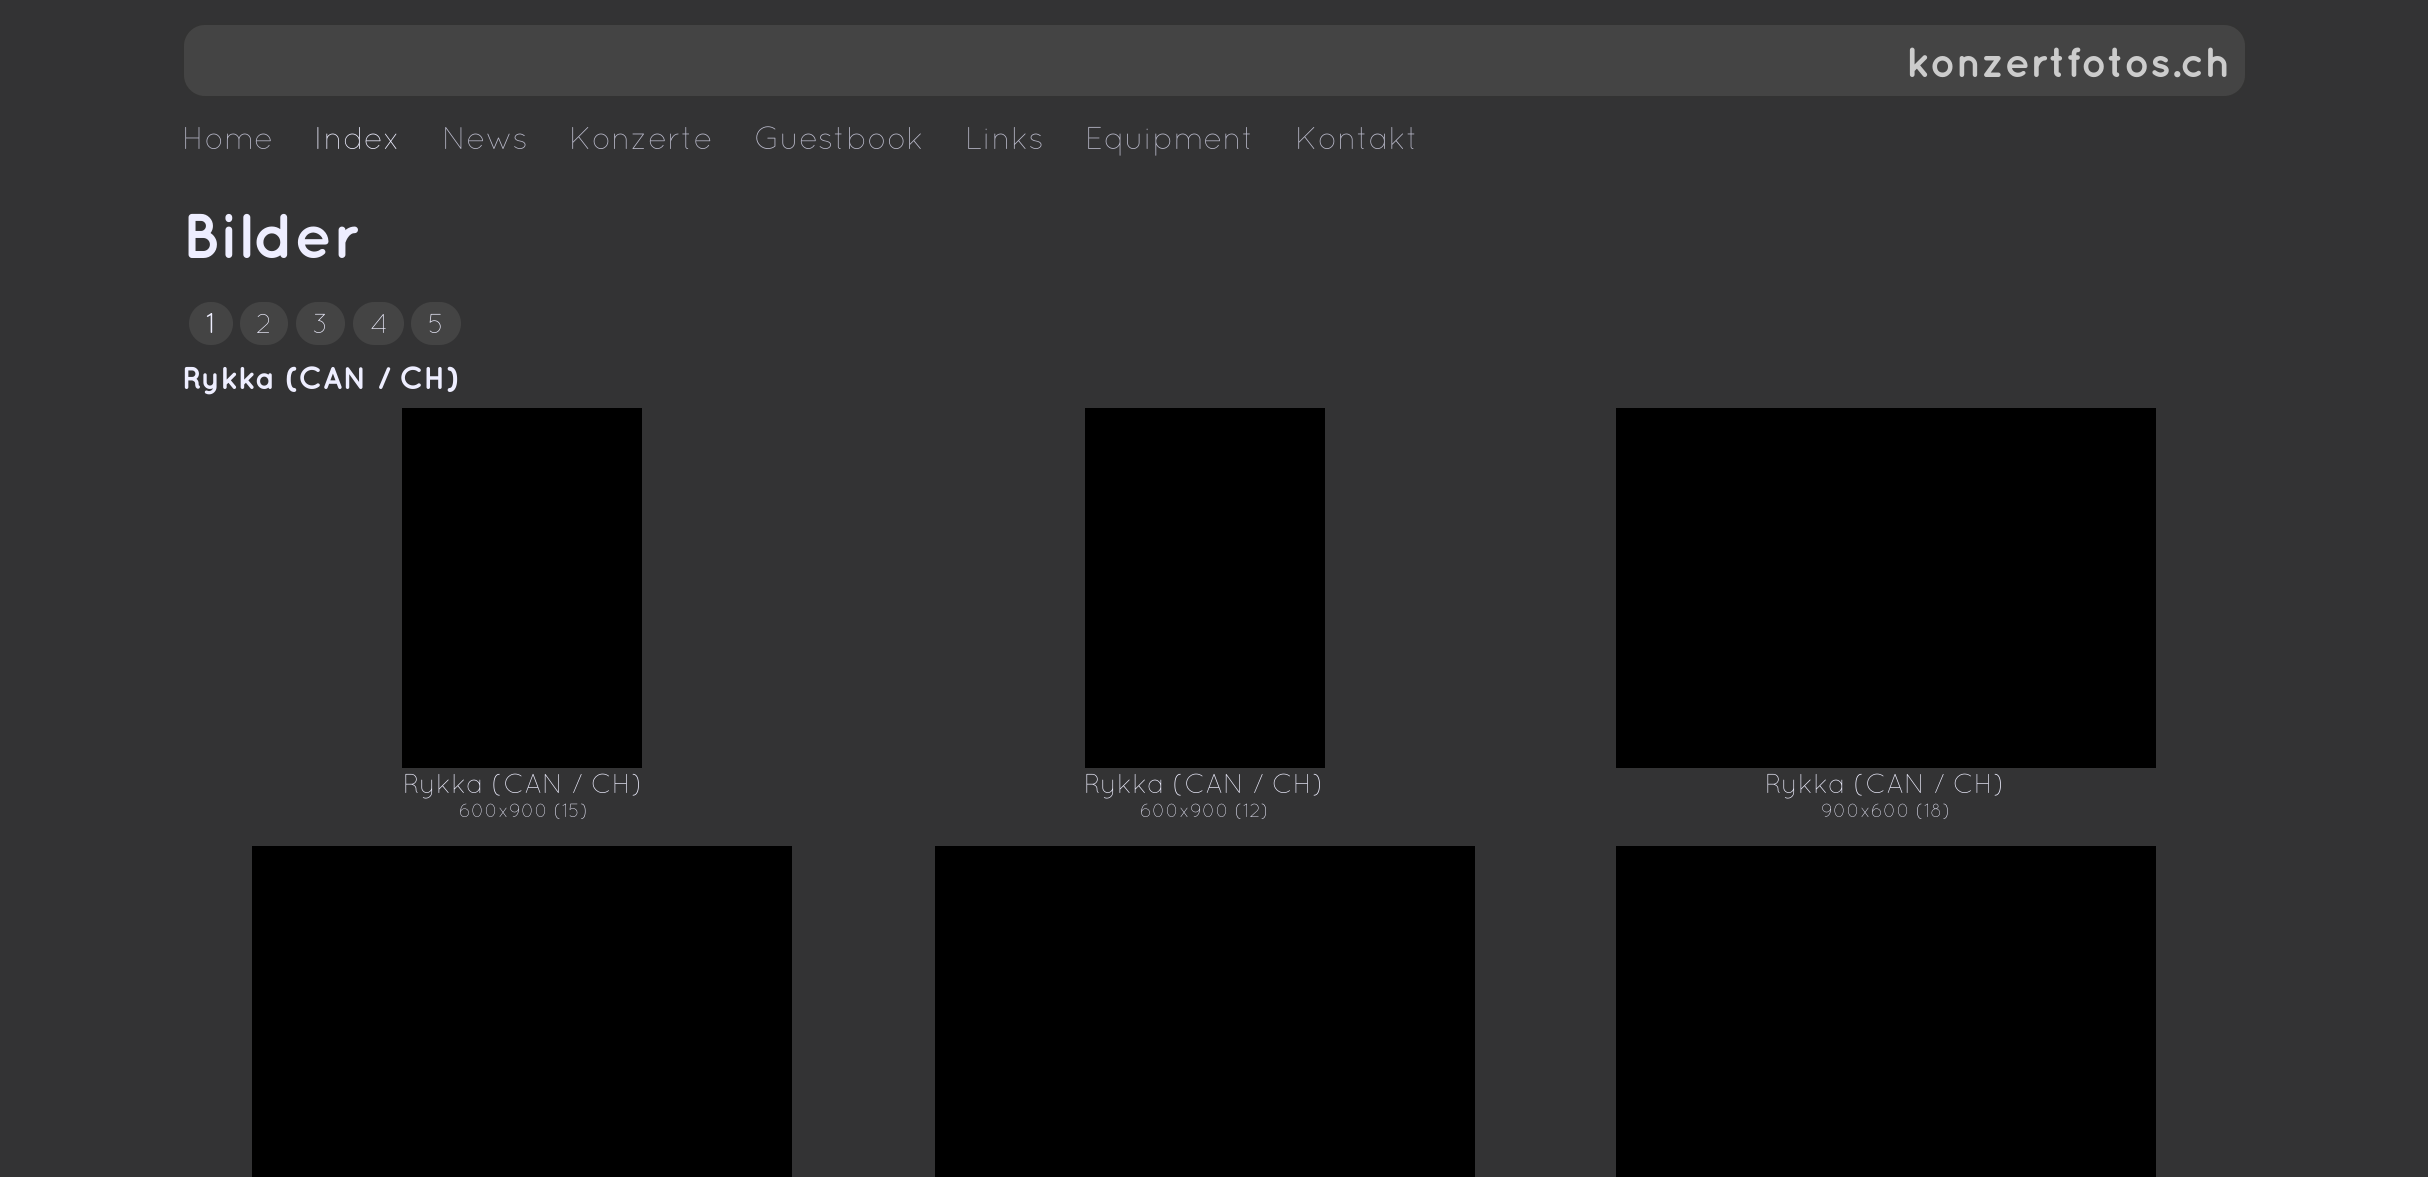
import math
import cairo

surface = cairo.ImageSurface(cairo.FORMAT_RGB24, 2428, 1177)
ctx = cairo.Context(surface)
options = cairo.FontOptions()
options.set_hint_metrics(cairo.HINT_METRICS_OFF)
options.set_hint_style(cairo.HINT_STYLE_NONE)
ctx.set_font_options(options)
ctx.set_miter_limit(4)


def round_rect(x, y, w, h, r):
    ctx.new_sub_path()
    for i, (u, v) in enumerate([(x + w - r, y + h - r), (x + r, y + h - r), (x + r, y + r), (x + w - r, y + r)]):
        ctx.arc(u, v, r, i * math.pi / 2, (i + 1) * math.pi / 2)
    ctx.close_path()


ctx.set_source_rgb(0.2, 0.2, 0.204)
ctx.paint()
ctx.set_source_rgb(0.267, 0.267, 0.267)
round_rect(183, 24, 2063, 73, 22)
ctx.fill_preserve()
ctx.set_source_rgb(0.2, 0.2, 0.2)
ctx.stroke()
ctx.select_font_face("Quicksand", cairo.FONT_SLANT_NORMAL, cairo.FONT_WEIGHT_BOLD)
ctx.set_font_size(42)
ctx.set_source_rgb(0.8, 0.8, 0.8)
ctx.move_to(1906, 77)
ctx.show_text("konzertfotos.ch")
ctx.select_font_face("Quicksand Light")
ctx.set_font_size(31.5)
ctx.set_source_rgb(0.733, 0.733, 0.8)
ctx.move_to(182, 149)
ctx.show_text("Home")
ctx.set_source_rgb(0.933, 0.933, 1)
ctx.move_to(314, 149)
ctx.show_text("Index")
ctx.set_source_rgb(0.733, 0.733, 0.8)
ctx.move_to(442, 149)
ctx.show_text("News")
ctx.move_to(569, 149)
ctx.show_text("Konzerte")
ctx.move_to(754, 149)
ctx.show_text("Guestbook")
ctx.move_to(965, 149)
ctx.show_text("Links")
ctx.move_to(1085, 149)
ctx.show_text("Equipment")
ctx.move_to(1295, 149)
ctx.show_text("Kontakt")
ctx.select_font_face("Quicksand", cairo.FONT_SLANT_NORMAL, cairo.FONT_WEIGHT_BOLD)
ctx.set_font_size(63)
ctx.set_source_rgb(0.933, 0.933, 1)
ctx.move_to(182, 258)
ctx.show_text("Bilder")
ctx.set_source_rgb(0.267, 0.267, 0.267)
round_rect(190, 303, 42, 41, 20.5)
ctx.fill_preserve()
ctx.stroke()
ctx.select_font_face("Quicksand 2", cairo.FONT_SLANT_NORMAL, cairo.FONT_WEIGHT_BOLD)
ctx.set_font_size(27.25)
ctx.set_source_rgb(0.933, 0.933, 1)
ctx.move_to(206, 333)
ctx.show_text("1")
ctx.set_source_rgb(0.267, 0.267, 0.267)
round_rect(241, 303, 46, 41, 20.5)
ctx.fill_preserve()
ctx.stroke()
ctx.select_font_face("Quicksand Light")
ctx.set_source_rgb(0.933, 0.933, 1)
ctx.move_to(256, 333)
ctx.show_text("2")
ctx.set_source_rgb(0.267, 0.267, 0.267)
round_rect(297, 303, 47, 41, 20.5)
ctx.fill_preserve()
ctx.stroke()
ctx.set_source_rgb(0.933, 0.933, 1)
ctx.move_to(312, 333)
ctx.show_text("3")
ctx.set_source_rgb(0.267, 0.267, 0.267)
round_rect(354, 303, 49, 41, 20.5)
ctx.fill_preserve()
ctx.stroke()
ctx.set_source_rgb(0.933, 0.933, 1)
ctx.move_to(370, 333)
ctx.show_text("4")
ctx.set_source_rgb(0.267, 0.267, 0.267)
round_rect(412, 303, 48, 41, 20.5)
ctx.fill_preserve()
ctx.stroke()
ctx.set_source_rgb(0.933, 0.933, 1)
ctx.move_to(428, 333)
ctx.show_text("5")
ctx.select_font_face("Quicksand", cairo.FONT_SLANT_NORMAL, cairo.FONT_WEIGHT_BOLD)
ctx.set_font_size(31.5)
ctx.move_to(182, 389)
ctx.show_text("Rykka (CAN / CH)")
ctx.set_source_rgb(0, 0, 0)
ctx.rectangle(402, 408, 240, 360)
ctx.fill()
ctx.select_font_face("Quicksand Light")
ctx.set_font_size(27.25)
ctx.set_source_rgb(0.933, 0.933, 1)
ctx.move_to(403, 793)
ctx.show_text("Rykka (CAN / CH)")
ctx.set_font_size(19)
ctx.move_to(459, 817)
ctx.show_text("600x900 (15)")
ctx.set_source_rgb(0, 0, 0)
ctx.rectangle(1085, 408, 240, 360)
ctx.fill()
ctx.set_font_size(27.25)
ctx.set_source_rgb(0.933, 0.933, 1)
ctx.move_to(1084, 793)
ctx.show_text("Rykka (CAN / CH)")
ctx.set_font_size(19)
ctx.move_to(1140, 817)
ctx.show_text("600x900 (12)")
ctx.set_source_rgb(0, 0, 0)
ctx.rectangle(1616, 408, 540, 360)
ctx.fill()
ctx.set_font_size(27.25)
ctx.set_source_rgb(0.933, 0.933, 1)
ctx.move_to(1765, 793)
ctx.show_text("Rykka (CAN / CH)")
ctx.set_font_size(19)
ctx.move_to(1821, 817)
ctx.show_text("900x600 (18)")
ctx.set_source_rgb(0, 0, 0)
ctx.rectangle(252, 846, 540, 331)
ctx.fill()
ctx.rectangle(935, 846, 540, 331)
ctx.fill()
ctx.rectangle(1616, 846, 540, 331)
ctx.fill()
surface.write_to_png("page.png")
